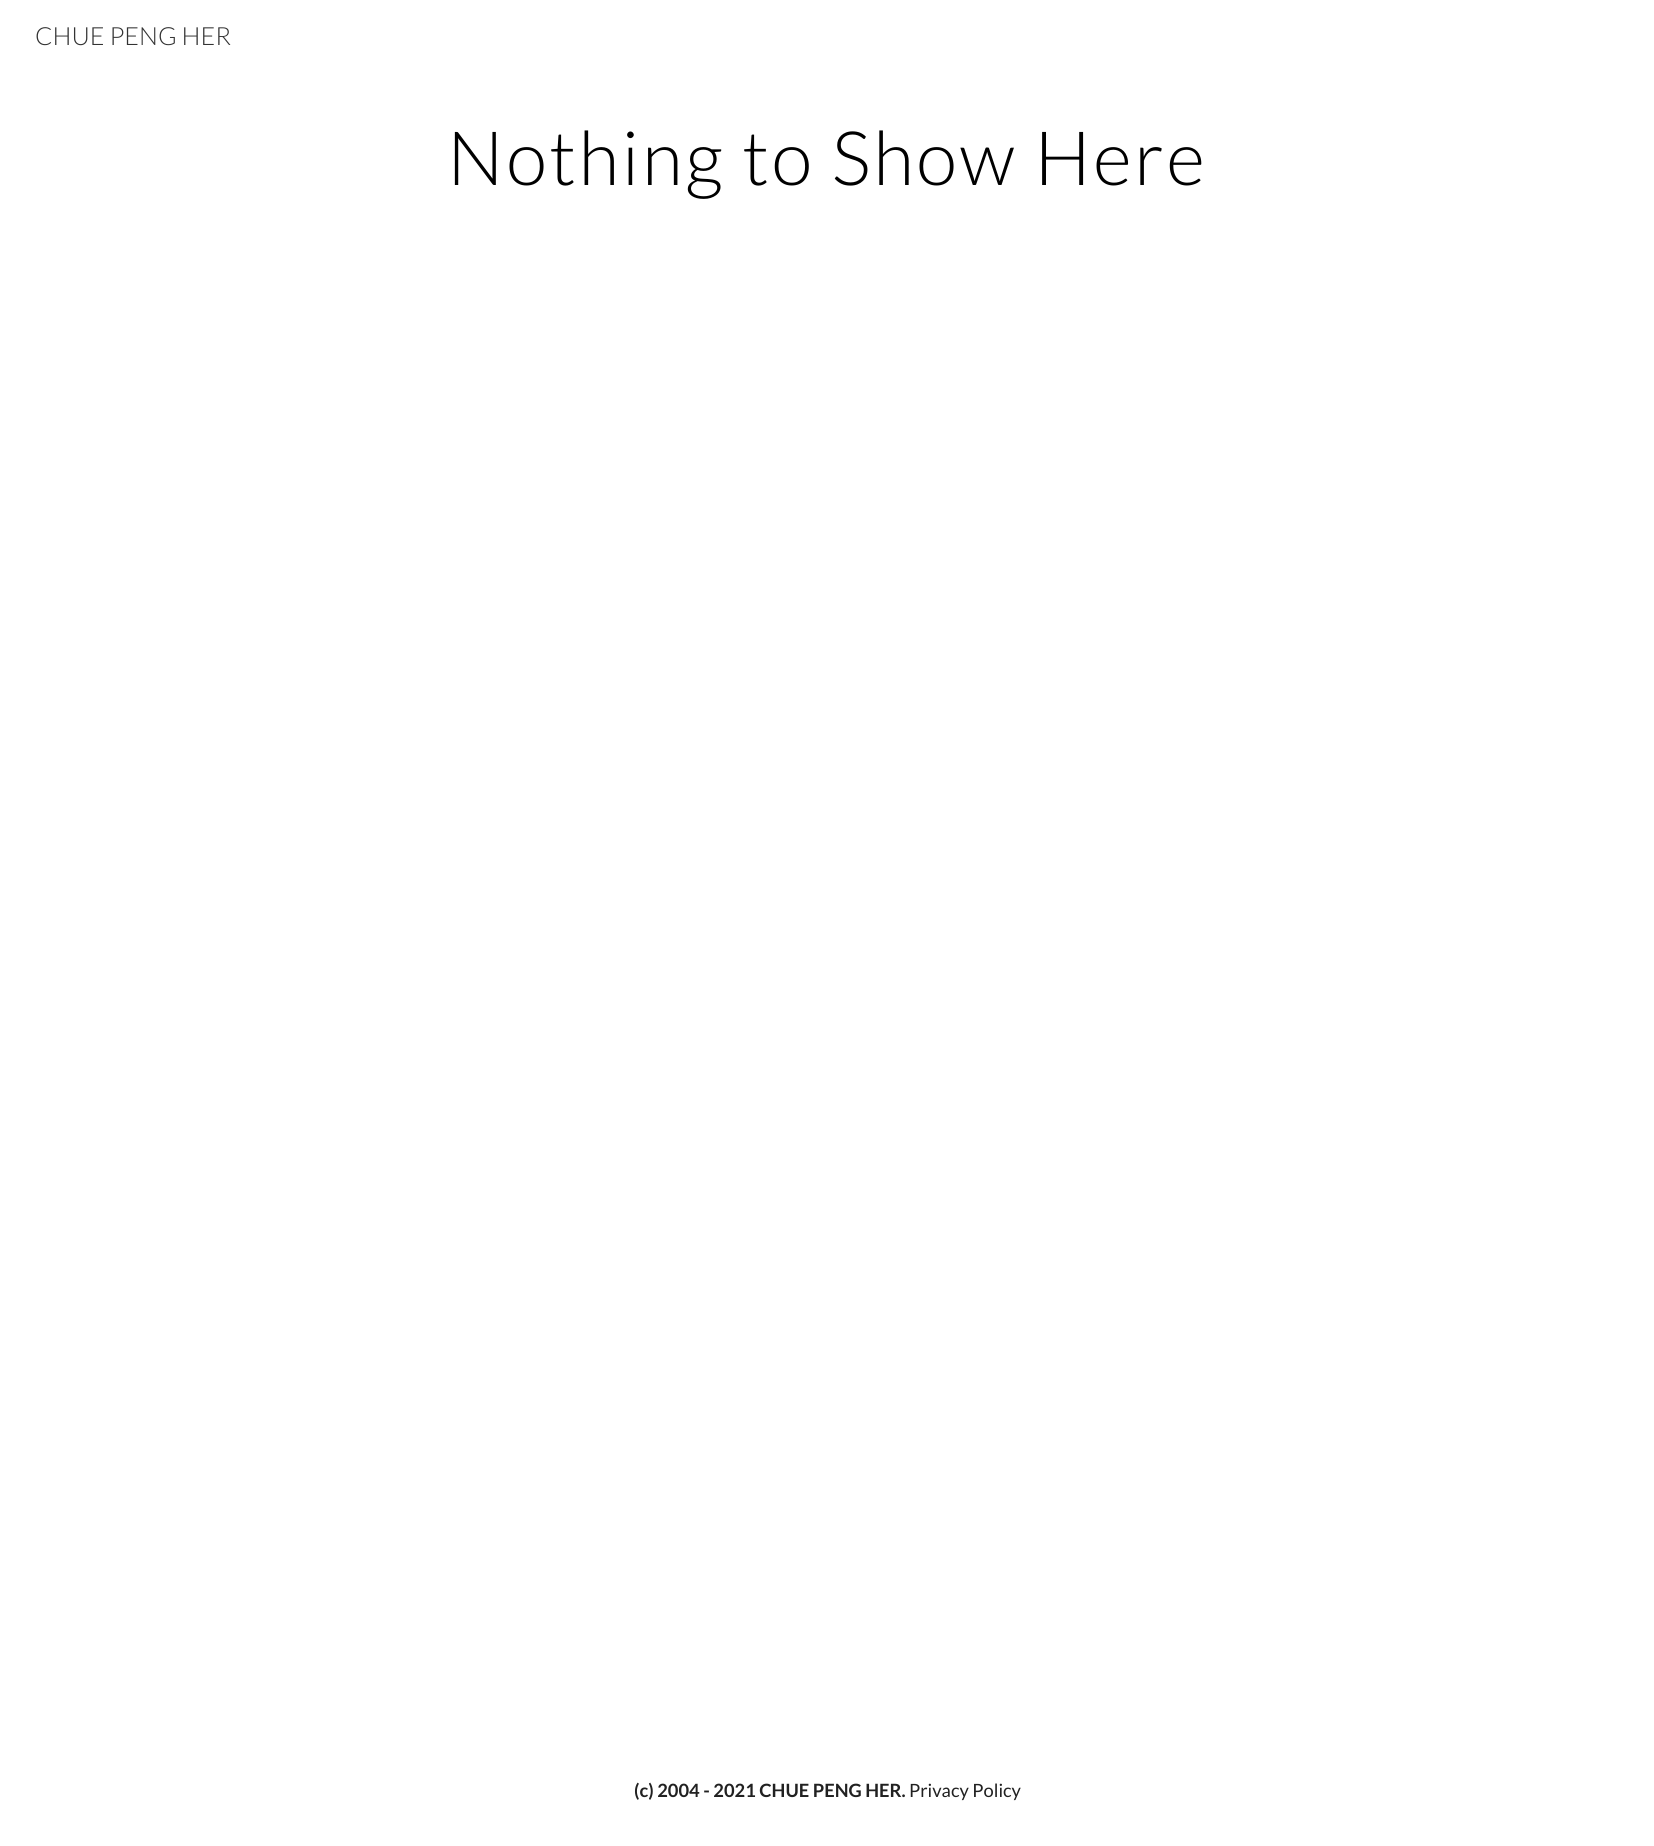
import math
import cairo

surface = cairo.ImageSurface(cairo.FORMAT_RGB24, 1654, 1846)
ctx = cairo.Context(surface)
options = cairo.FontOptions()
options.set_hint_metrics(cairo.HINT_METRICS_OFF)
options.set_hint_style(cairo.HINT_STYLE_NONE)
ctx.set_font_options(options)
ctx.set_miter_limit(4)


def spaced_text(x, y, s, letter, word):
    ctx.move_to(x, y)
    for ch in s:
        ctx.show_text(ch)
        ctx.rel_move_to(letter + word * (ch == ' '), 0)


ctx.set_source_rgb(1, 1, 1)
ctx.paint()
ctx.select_font_face("Lato Light")
ctx.set_font_size(25)
ctx.set_source_rgb(0.2, 0.2, 0.2)
ctx.move_to(35, 45)
ctx.show_text("CHUE PENG HER")
ctx.set_font_size(75)
ctx.set_source_rgb(0, 0, 0)
spaced_text(447, 185, "Nothing to Show Here", 2.5, 0)
ctx.select_font_face("Lato", cairo.FONT_SLANT_NORMAL, cairo.FONT_WEIGHT_BOLD)
ctx.set_font_size(18.3)
ctx.set_source_rgb(0.129, 0.129, 0.129)
ctx.move_to(634, 1797)
ctx.show_text("(c) 2004 - 2021 CHUE PENG HER.")
ctx.select_font_face("Lato")
ctx.move_to(909, 1797)
ctx.show_text("Privacy Policy")
surface.write_to_png("page.png")
